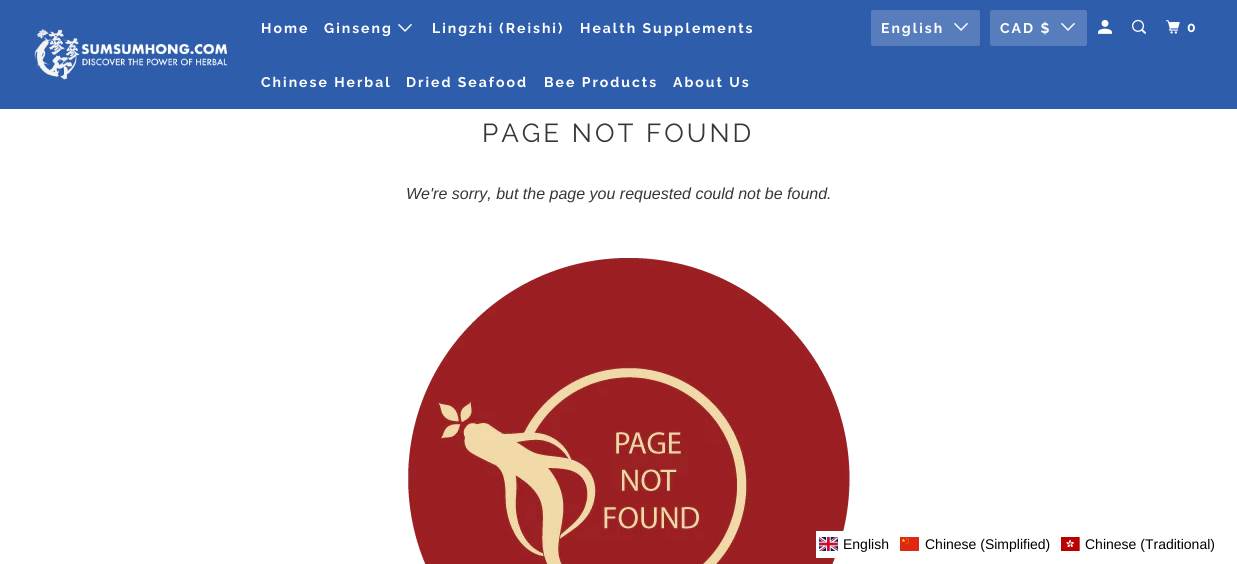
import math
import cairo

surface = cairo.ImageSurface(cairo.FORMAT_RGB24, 1237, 564)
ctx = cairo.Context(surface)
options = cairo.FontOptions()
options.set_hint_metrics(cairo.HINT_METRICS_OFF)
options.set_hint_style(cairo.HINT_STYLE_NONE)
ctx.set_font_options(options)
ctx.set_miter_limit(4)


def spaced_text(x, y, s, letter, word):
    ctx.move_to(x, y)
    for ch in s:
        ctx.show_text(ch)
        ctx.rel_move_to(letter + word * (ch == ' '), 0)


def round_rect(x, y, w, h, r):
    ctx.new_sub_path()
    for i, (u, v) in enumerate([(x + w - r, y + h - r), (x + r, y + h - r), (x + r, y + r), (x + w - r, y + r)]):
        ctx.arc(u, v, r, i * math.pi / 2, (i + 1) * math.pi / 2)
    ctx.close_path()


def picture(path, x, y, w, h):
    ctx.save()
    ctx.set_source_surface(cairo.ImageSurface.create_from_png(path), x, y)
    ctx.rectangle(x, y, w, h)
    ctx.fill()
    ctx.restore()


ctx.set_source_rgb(1, 1, 1)
ctx.paint()
ctx.set_source_rgb(0.176, 0.365, 0.671)
ctx.rectangle(0, 0, 1237, 109)
ctx.fill()
picture("img1.png", 34, 29, 193, 51)
ctx.select_font_face("Raleway", cairo.FONT_SLANT_NORMAL, cairo.FONT_WEIGHT_BOLD)
ctx.set_font_size(14)
ctx.set_source_rgb(1, 1, 1)
spaced_text(261, 33, "Home", 2, 0)
spaced_text(324, 33, "Ginseng", 2, 0)
picture("img2.png", 398, 24, 14, 8)
spaced_text(432, 33, "Lingzhi (Reishi)", 2, 0)
spaced_text(580, 33, "Health Supplements", 2, 0)
spaced_text(261, 87, "Chinese Herbal", 2, 0)
spaced_text(406, 87, "Dried Seafood", 2, 0)
spaced_text(544, 87, "Bee Products", 2, 0)
spaced_text(673, 87, "About Us", 2, 0)
ctx.set_source_rgb(0.341, 0.49, 0.737)
round_rect(871, 10, 109, 36, 2)
ctx.fill()
ctx.set_source_rgb(1, 1, 1)
spaced_text(881, 33, "English", 2, 0)
picture("img3.png", 954, 23, 14, 8)
ctx.set_source_rgb(0.341, 0.49, 0.737)
round_rect(990, 10, 97, 36, 2)
ctx.fill()
ctx.set_source_rgb(1, 1, 1)
spaced_text(1000, 33, "CAD $", 2, 0)
picture("img3.png", 1061, 23, 14, 8)
picture("img4.png", 1098, 19, 14, 15)
picture("img5.png", 1132, 19, 14, 15)
picture("img6.png", 1166, 20, 14, 14)
spaced_text(1187, 32, "0", 2, 0)
ctx.select_font_face("Raleway")
ctx.set_font_size(26)
ctx.set_source_rgb(0.212, 0.212, 0.212)
spaced_text(482, 142, "PAGE NOT FOUND", 3, 0)
ctx.select_font_face("Liberation Sans", cairo.FONT_SLANT_ITALIC)
ctx.set_font_size(16)
ctx.move_to(406, 199)
ctx.show_text("We're sorry, but the page you requested could not be found.")
picture("img7.png", 408, 258, 442, 306)
ctx.set_source_rgb(1, 1, 1)
ctx.rectangle(816, 531, 28, 27)
ctx.fill()
picture("img8.png", 819, 537, 19, 14)
ctx.select_font_face("Liberation Sans")
ctx.set_font_size(14)
ctx.set_source_rgb(0, 0, 0)
ctx.move_to(843, 549)
ctx.show_text("English")
picture("img9.png", 900, 537, 19, 14)
ctx.move_to(925, 549)
ctx.show_text("Chinese (Simplified)")
picture("img10.png", 1061, 537, 19, 14)
ctx.move_to(1085, 549)
ctx.show_text("Chinese (Traditional)")
surface.write_to_png("page.png")
